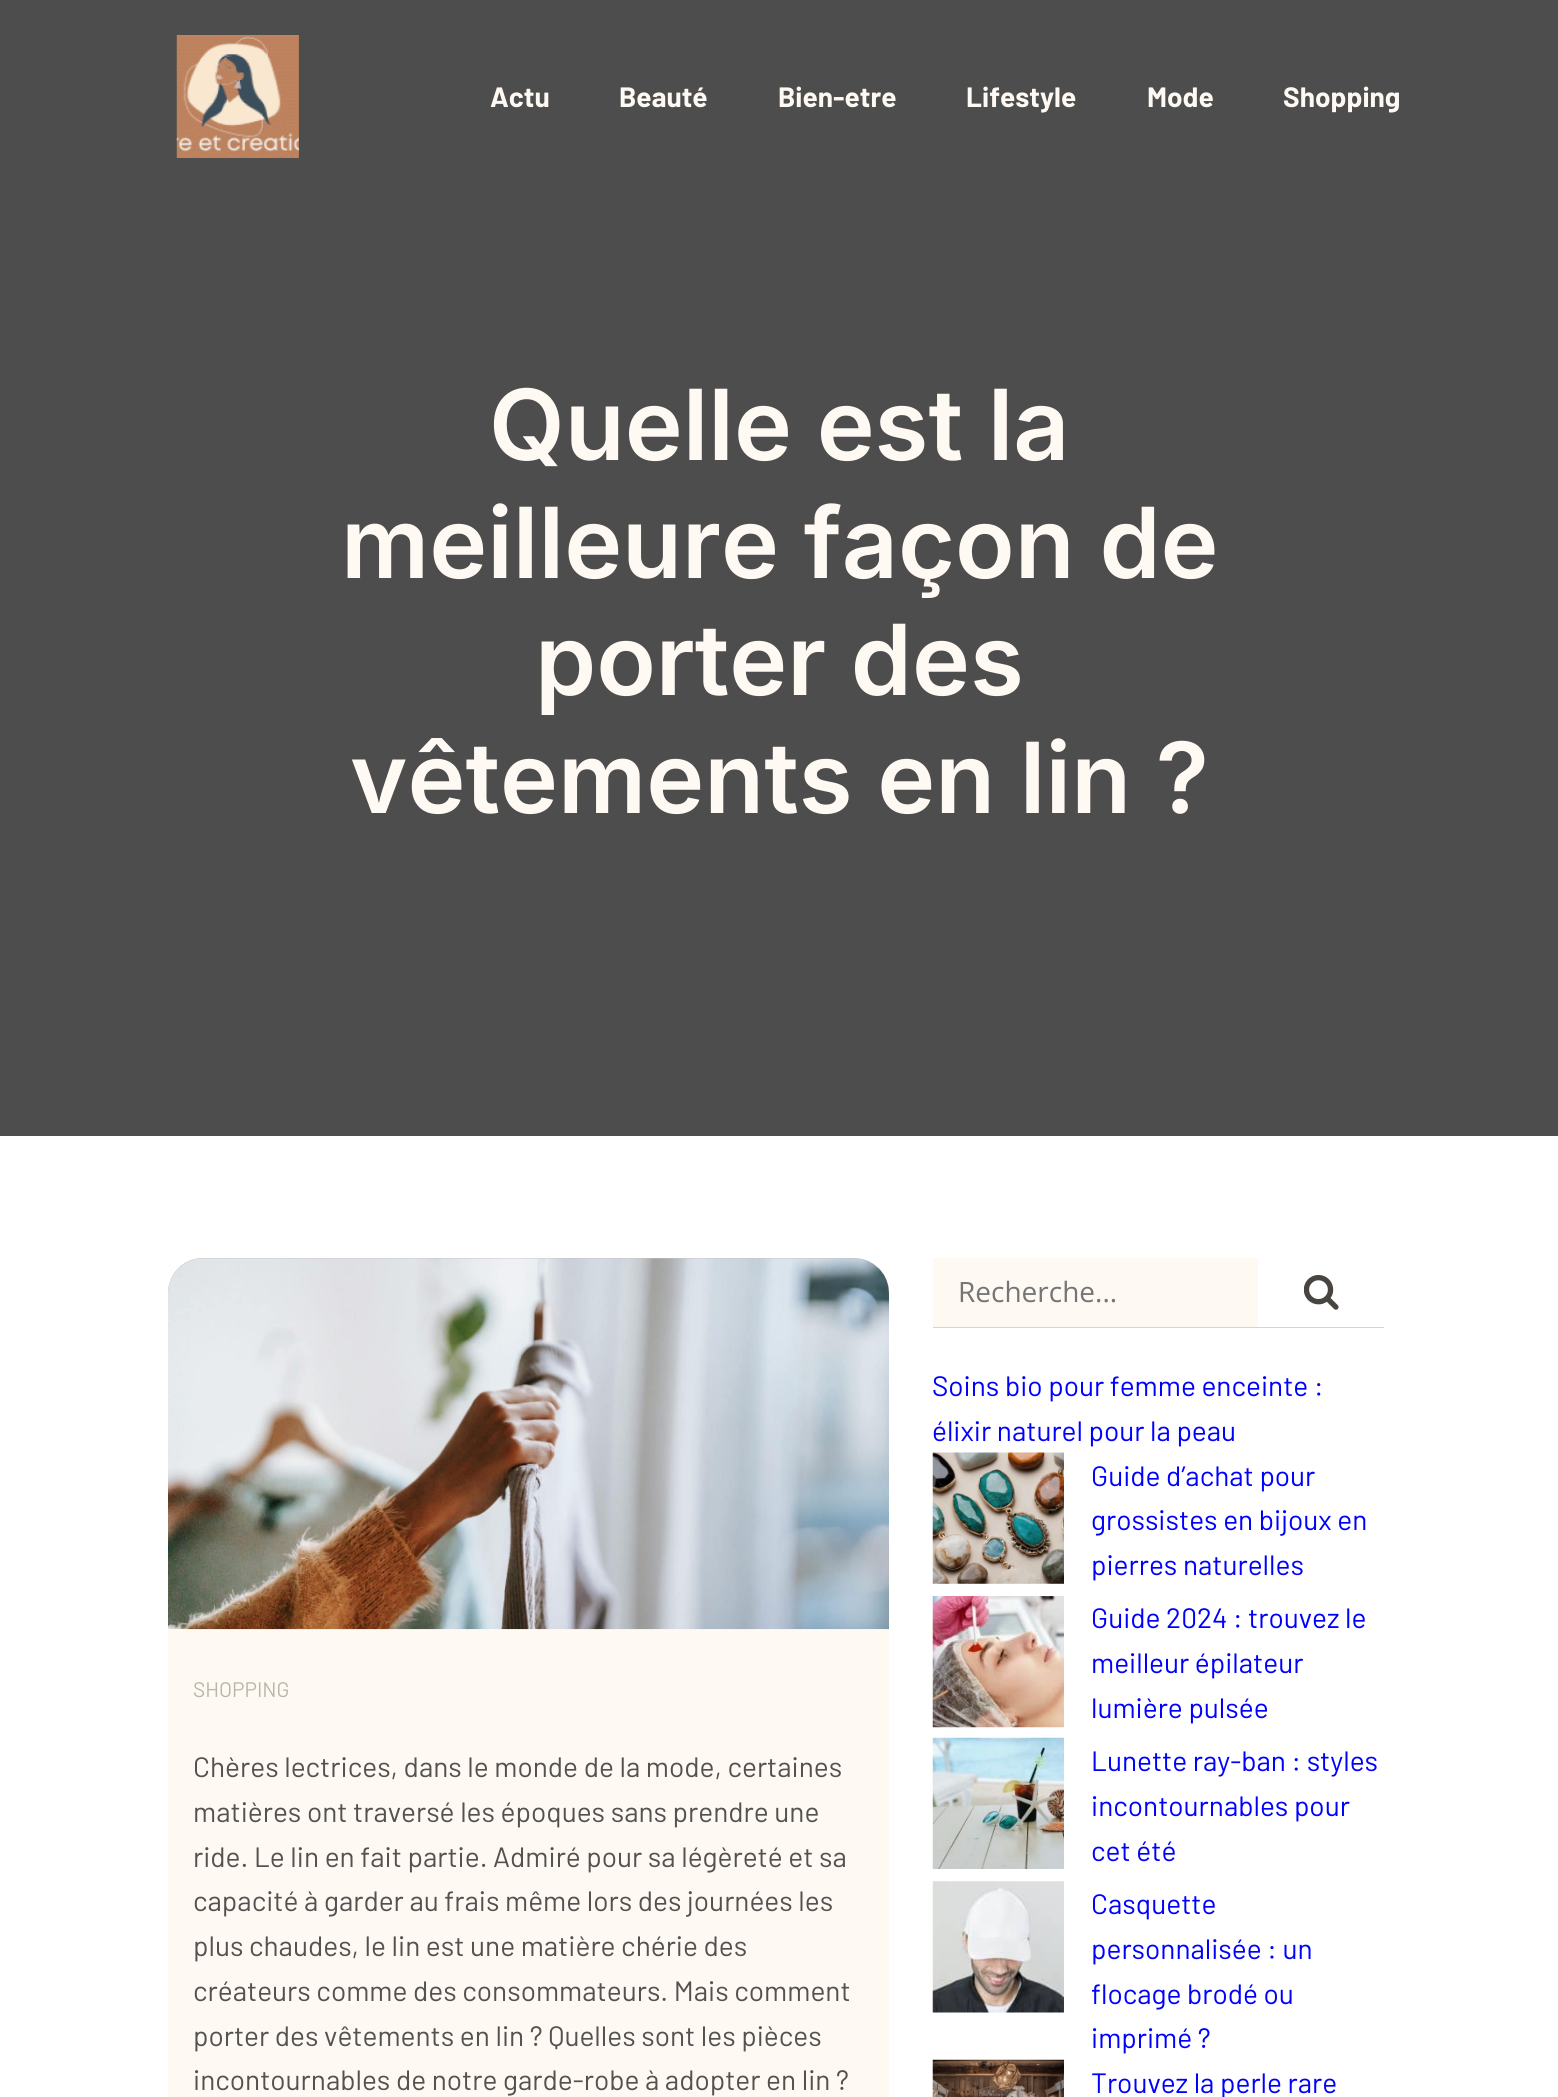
import math
import cairo

surface = cairo.ImageSurface(cairo.FORMAT_RGB24, 1558, 2097)
ctx = cairo.Context(surface)
options = cairo.FontOptions()
options.set_hint_metrics(cairo.HINT_METRICS_OFF)
options.set_hint_style(cairo.HINT_STYLE_NONE)
ctx.set_font_options(options)
ctx.set_miter_limit(4)


def round_rect(x, y, w, h, r):
    ctx.new_sub_path()
    for i, (u, v) in enumerate([(x + w - r, y + h - r), (x + r, y + h - r), (x + r, y + r), (x + w - r, y + r)]):
        ctx.arc(u, v, r, i * math.pi / 2, (i + 1) * math.pi / 2)
    ctx.close_path()


def picture(path, x, y, w, h):
    ctx.save()
    ctx.set_source_surface(cairo.ImageSurface.create_from_png(path), x, y)
    ctx.rectangle(x, y, w, h)
    ctx.fill()
    ctx.restore()


ctx.set_source_rgb(1, 1, 1)
ctx.paint()
ctx.set_source_rgb(0.302, 0.302, 0.302)
ctx.rectangle(0, 0, 1558, 1136)
ctx.fill()
picture("img1.png", 176, 35, 123, 123)
ctx.select_font_face("Barlow", cairo.FONT_SLANT_NORMAL, cairo.FONT_WEIGHT_BOLD)
ctx.set_font_size(28)
ctx.set_source_rgb(1, 0.976, 0.957)
ctx.move_to(490, 107)
ctx.show_text("Actu")
ctx.move_to(619, 107)
ctx.show_text("Beauté")
ctx.move_to(778, 107)
ctx.show_text("Bien-etre")
ctx.move_to(966, 107)
ctx.show_text("Lifestyle")
ctx.move_to(1147, 107)
ctx.show_text("Mode")
ctx.move_to(1283, 107)
ctx.show_text("Shopping")
ctx.select_font_face("Inter SemiBold")
ctx.set_font_size(98)
ctx.move_to(489, 460)
ctx.show_text("Quelle est la")
ctx.move_to(341, 578)
ctx.show_text("meilleure façon de")
ctx.move_to(535, 695)
ctx.show_text("porter des")
ctx.move_to(350, 813)
ctx.show_text("vêtements en lin ?")
round_rect(168, 1258, 721, 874, 35)
ctx.fill()
ctx.set_source_rgb(0.792, 0.769, 0.757)
ctx.new_path()
ctx.move_to(203, 1258)
ctx.line_to(854, 1258)
ctx.curve_to(873.5, 1258, 889, 1273.5, 889, 1293)
ctx.line_to(889, 1629)
ctx.line_to(168, 1629)
ctx.line_to(168, 1293)
ctx.curve_to(168, 1273.5, 183.5, 1258, 203, 1258)
ctx.close_path()
ctx.fill()
picture("img2.png", 168, 1258, 721, 372)
ctx.select_font_face("Barlow")
ctx.set_font_size(21)
ctx.set_source_rgb(0.718, 0.718, 0.643)
ctx.move_to(193, 1697)
ctx.show_text("SHOPPING")
ctx.set_font_size(28)
ctx.set_source_rgb(0.329, 0.322, 0.318)
ctx.move_to(193, 1777)
ctx.show_text("Chères lectrices, dans le monde de la mode, certaines")
ctx.move_to(193, 1822)
ctx.show_text("matières ont traversé les époques sans prendre une")
ctx.move_to(193, 1867)
ctx.show_text("ride. Le lin en fait partie. Admiré pour sa légèreté et sa")
ctx.move_to(193, 1911)
ctx.show_text("capacité à garder au frais même lors des journées les")
ctx.move_to(193, 1956)
ctx.show_text("plus chaudes, le lin est une matière chérie des")
ctx.move_to(193, 2001)
ctx.show_text("créateurs comme des consommateurs. Mais comment")
ctx.move_to(193, 2046)
ctx.show_text("porter des vêtements en lin ? Quelles sont les pièces")
ctx.move_to(193, 2090)
ctx.show_text("incontournables de notre garde-robe à adopter en lin ?")
ctx.set_source_rgb(1, 0.976, 0.957)
ctx.rectangle(933, 1258, 325, 69)
ctx.fill()
ctx.set_source_rgb(1, 0.792, 0.624)
ctx.rectangle(933, 1327, 451, 1)
ctx.fill()
ctx.select_font_face("Open Sans")
ctx.set_source_rgb(0.459, 0.459, 0.459)
ctx.move_to(958, 1302)
ctx.show_text("Recherche...")
picture("img3.png", 1304, 1274, 35, 36)
ctx.select_font_face("Barlow")
ctx.set_source_rgb(0, 0, 1)
ctx.move_to(932, 1396)
ctx.show_text("Soins bio pour femme enceinte :")
ctx.move_to(932, 1441)
ctx.show_text("élixir naturel pour la peau")
picture("img4.png", 932, 1452, 132, 132)
ctx.move_to(1091, 1486)
ctx.show_text("Guide d’achat pour")
ctx.move_to(1091, 1530)
ctx.show_text("grossistes en bijoux en")
ctx.move_to(1091, 1575)
ctx.show_text("pierres naturelles")
picture("img5.png", 932, 1596, 132, 132)
ctx.move_to(1091, 1628)
ctx.show_text("Guide 2024 : trouvez le")
ctx.move_to(1091, 1673)
ctx.show_text("meilleur épilateur")
ctx.move_to(1091, 1718)
ctx.show_text("lumière pulsée")
picture("img6.png", 932, 1737, 132, 132)
ctx.move_to(1091, 1771)
ctx.show_text("Lunette ray-ban : styles")
ctx.move_to(1091, 1816)
ctx.show_text("incontournables pour")
ctx.move_to(1091, 1861)
ctx.show_text("cet été")
picture("img7.png", 932, 1881, 132, 132)
ctx.move_to(1091, 1914)
ctx.show_text("Casquette")
ctx.move_to(1091, 1959)
ctx.show_text("personnalisée : un")
ctx.move_to(1091, 2004)
ctx.show_text("flocage brodé ou")
ctx.move_to(1091, 2048)
ctx.show_text("imprimé ?")
picture("img8.png", 932, 2059, 132, 38)
ctx.move_to(1091, 2093)
ctx.show_text("Trouvez la perle rare")
surface.write_to_png("page.png")
